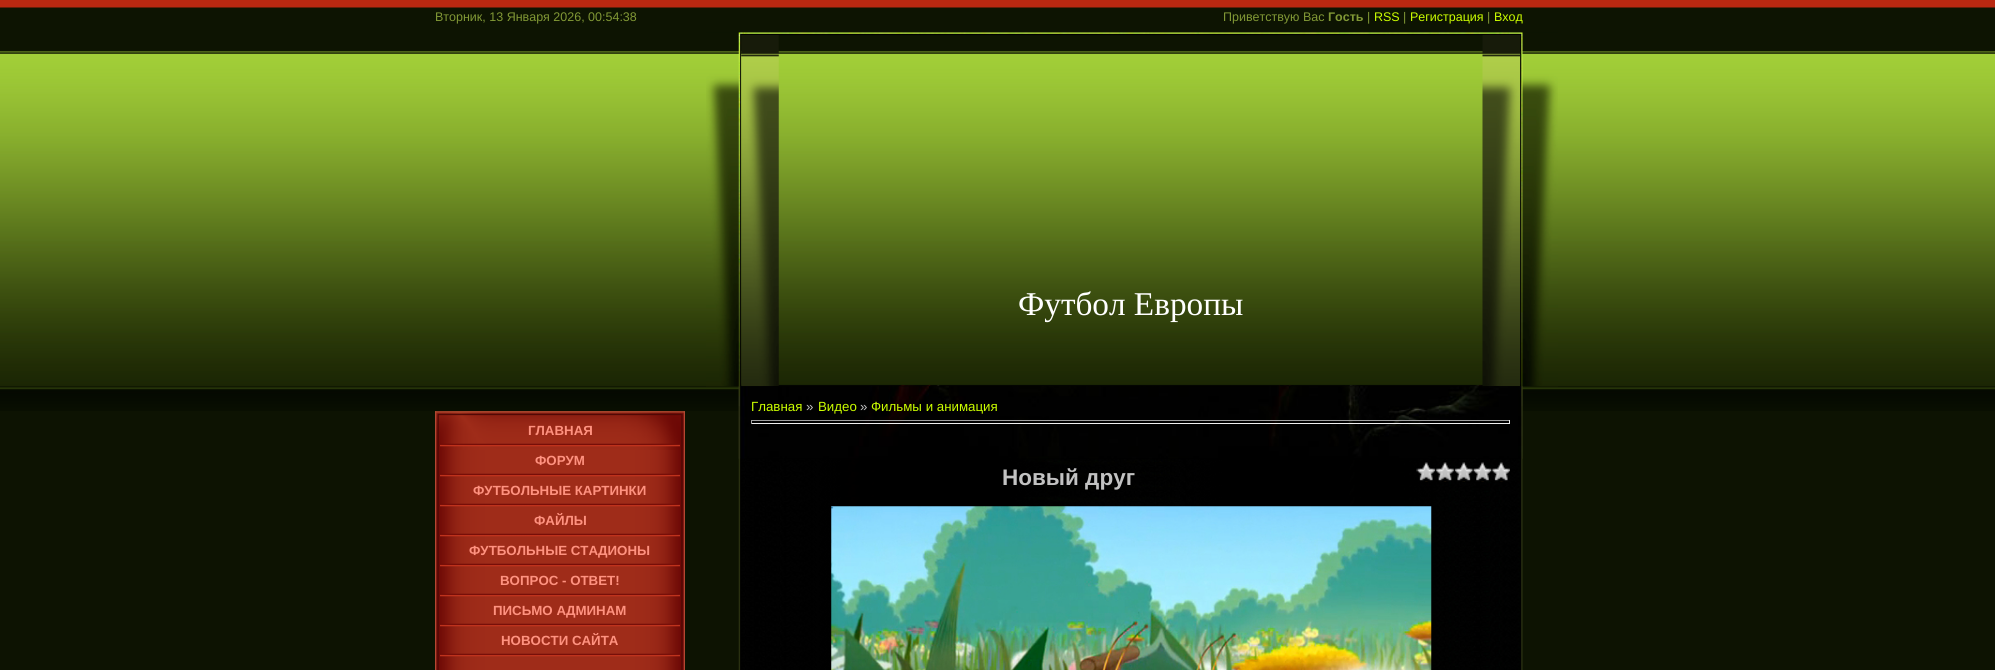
import math
import cairo

surface = cairo.ImageSurface(cairo.FORMAT_RGB24, 1995, 670)
ctx = cairo.Context(surface)
options = cairo.FontOptions()
options.set_hint_metrics(cairo.HINT_METRICS_OFF)
options.set_hint_style(cairo.HINT_STYLE_NONE)
ctx.set_font_options(options)
ctx.set_miter_limit(4)


def picture(path, x, y, w, h):
    ctx.save()
    ctx.set_source_surface(cairo.ImageSurface.create_from_png(path), x, y)
    ctx.rectangle(x, y, w, h)
    ctx.fill()
    ctx.restore()


ctx.set_source_rgb(0.051, 0.078, 0.008)
ctx.paint()
picture("img1.png", 0, 0, 1995, 411)
ctx.select_font_face("Liberation Sans")
ctx.set_font_size(12.5)
ctx.set_source_rgb(0.506, 0.596, 0.208)
ctx.move_to(435, 21)
ctx.show_text("Вторник, 13 Января 2026, 00:54:38")
ctx.move_to(1223, 21)
ctx.show_text("Приветствую Вас")
ctx.select_font_face("Liberation Sans", cairo.FONT_SLANT_NORMAL, cairo.FONT_WEIGHT_BOLD)
ctx.move_to(1328, 21)
ctx.show_text("Гость")
ctx.select_font_face("Liberation Sans")
ctx.move_to(1367, 21)
ctx.show_text("|")
ctx.set_source_rgb(0.8, 1, 0)
ctx.move_to(1374, 21)
ctx.show_text("RSS")
ctx.set_source_rgb(0.506, 0.596, 0.208)
ctx.move_to(1403, 21)
ctx.show_text("|")
ctx.set_source_rgb(0.8, 1, 0)
ctx.move_to(1410, 21)
ctx.show_text("Регистрация")
ctx.set_source_rgb(0.506, 0.596, 0.208)
ctx.move_to(1487, 21)
ctx.show_text("|")
ctx.set_source_rgb(0.8, 1, 0)
ctx.move_to(1494, 21)
ctx.show_text("Вход")
picture("img2.png", 706, 32, 852, 355)
picture("img3.png", 741, 35, 38, 352)
ctx.select_font_face("Liberation Serif")
ctx.set_font_size(33.25)
ctx.set_source_rgb(1, 1, 1)
ctx.move_to(1018, 315)
ctx.show_text("Футбол Европы")
picture("img4.png", 1482, 35, 38, 352)
picture("img5.png", 435, 411, 250, 259)
picture("img6.png", 435, 411, 250, 39)
picture("img7.png", 440, 443, 240, 4)
ctx.select_font_face("Liberation Sans", cairo.FONT_SLANT_NORMAL, cairo.FONT_WEIGHT_BOLD)
ctx.set_font_size(13.3)
ctx.set_source_rgb(1, 0.573, 0.502)
ctx.move_to(528, 435)
ctx.show_text("ГЛАВНАЯ")
picture("img8.png", 440, 473, 240, 4)
ctx.move_to(535, 465)
ctx.show_text("ФОРУМ")
picture("img9.png", 440, 503, 240, 4)
ctx.move_to(473, 495)
ctx.show_text("ФУТБОЛЬНЫЕ КАРТИНКИ")
picture("img9.png", 440, 533, 240, 4)
ctx.move_to(534, 525)
ctx.show_text("ФАЙЛЫ")
picture("img8.png", 440, 563, 240, 4)
ctx.move_to(469, 555)
ctx.show_text("ФУТБОЛЬНЫЕ СТАДИОНЫ")
picture("img10.png", 440, 593, 240, 4)
ctx.move_to(500, 585)
ctx.show_text("ВОПРОС - ОТВЕТ!")
picture("img10.png", 440, 623, 240, 4)
ctx.move_to(493, 615)
ctx.show_text("ПИСЬМО АДМИНАМ")
picture("img10.png", 440, 653, 240, 4)
ctx.move_to(501, 645)
ctx.show_text("НОВОСТИ САЙТА")
picture("img11.png", 738, 386, 785, 284)
picture("img12.png", 738, 386, 785, 73)
ctx.select_font_face("Liberation Sans")
ctx.set_source_rgb(0.8, 1, 0)
ctx.move_to(751, 411)
ctx.show_text("Главная")
ctx.set_source_rgb(0.761, 0.761, 0.761)
ctx.move_to(806, 411)
ctx.show_text("»")
ctx.set_source_rgb(0.8, 1, 0)
ctx.move_to(818, 411)
ctx.show_text("Видео")
ctx.set_source_rgb(0.761, 0.761, 0.761)
ctx.move_to(860, 411)
ctx.show_text("»")
ctx.set_source_rgb(0.8, 1, 0)
ctx.move_to(871, 411)
ctx.show_text("Фильмы и анимация")
ctx.set_source_rgb(0.624, 0.624, 0.624)
ctx.rectangle(751, 420, 759, 1)
ctx.fill()
ctx.set_source_rgb(0.933, 0.933, 0.933)
ctx.rectangle(1509, 420, 1, 4)
ctx.fill()
ctx.rectangle(751, 423, 759, 1)
ctx.fill()
ctx.set_source_rgb(0.624, 0.624, 0.624)
ctx.rectangle(751, 420, 1, 4)
ctx.fill()
ctx.select_font_face("Liberation Sans", cairo.FONT_SLANT_NORMAL, cairo.FONT_WEIGHT_BOLD)
ctx.set_font_size(22.5)
ctx.set_source_rgb(0.761, 0.761, 0.761)
ctx.move_to(1002, 485)
ctx.show_text("Новый друг")
picture("img13.png", 1416, 462, 94, 20)
picture("img14.png", 831, 506, 601, 164)
surface.write_to_png("page.png")
